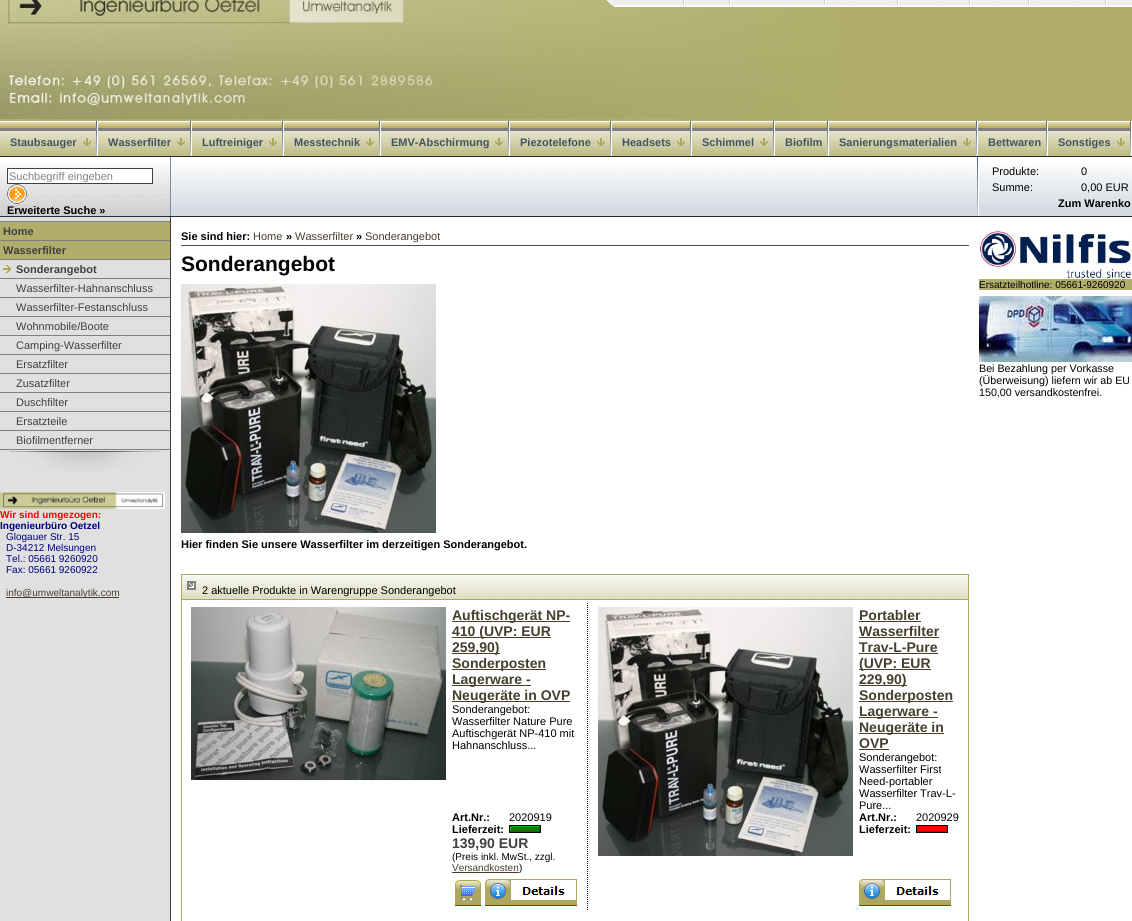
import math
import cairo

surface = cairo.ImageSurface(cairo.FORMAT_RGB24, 1132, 921)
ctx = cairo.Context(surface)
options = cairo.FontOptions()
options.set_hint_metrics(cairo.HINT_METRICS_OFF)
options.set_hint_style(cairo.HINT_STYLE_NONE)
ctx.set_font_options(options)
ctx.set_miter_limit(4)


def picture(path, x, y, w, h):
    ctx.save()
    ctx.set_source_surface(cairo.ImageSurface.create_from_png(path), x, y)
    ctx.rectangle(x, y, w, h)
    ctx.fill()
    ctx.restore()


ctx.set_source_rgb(1, 1, 1)
ctx.paint()
ctx.set_source_rgb(0.69, 0.682, 0.416)
ctx.rectangle(0, 7, 1132, 114)
ctx.fill()
picture("img1.png", 0, 0, 836, 120)
picture("img2.png", 607, 0, 16, 7)
picture("img3.png", 623, 0, 15, 7)
picture("img4.png", 638, 0, 45, 7)
picture("img5.png", 683, 0, 2, 7)
picture("img6.png", 685, 0, 44, 7)
picture("img5.png", 729, 0, 2, 7)
picture("img7.png", 731, 0, 93, 7)
picture("img5.png", 824, 0, 2, 7)
picture("img8.png", 826, 0, 71, 7)
picture("img5.png", 897, 0, 2, 7)
picture("img3.png", 899, 0, 15, 7)
picture("img9.png", 914, 0, 55, 7)
picture("img5.png", 969, 0, 2, 7)
picture("img10.png", 971, 0, 57, 7)
picture("img5.png", 1028, 0, 2, 7)
picture("img11.png", 1030, 0, 75, 7)
picture("img5.png", 1105, 0, 2, 7)
picture("img3.png", 1107, 0, 15, 7)
picture("img12.png", 1122, 0, 10, 7)
picture("img13.png", 0, 122, 96, 34)
ctx.select_font_face("Liberation Sans", cairo.FONT_SLANT_NORMAL, cairo.FONT_WEIGHT_BOLD)
ctx.set_font_size(11)
ctx.set_source_rgb(0.259, 0.325, 0.384)
ctx.move_to(10, 146)
ctx.show_text("Staubsauger")
picture("img14.png", 83, 138, 8, 8)
picture("img15.png", 96, 121, 2, 35)
picture("img16.png", 98, 122, 92, 34)
ctx.move_to(108, 146)
ctx.show_text("Wasserfilter")
picture("img14.png", 177, 138, 8, 8)
picture("img15.png", 190, 121, 2, 35)
picture("img17.png", 192, 122, 90, 34)
ctx.move_to(202, 146)
ctx.show_text("Luftreiniger")
picture("img14.png", 269, 138, 8, 8)
picture("img15.png", 282, 121, 2, 35)
picture("img18.png", 284, 122, 95, 34)
ctx.move_to(294, 146)
ctx.show_text("Messtechnik")
picture("img19.png", 366, 138, 8, 8)
picture("img15.png", 379, 121, 2, 35)
picture("img20.png", 381, 122, 127, 34)
ctx.move_to(391, 146)
ctx.show_text("EMV-Abschirmung")
picture("img19.png", 495, 138, 8, 8)
picture("img15.png", 508, 121, 2, 35)
picture("img21.png", 510, 122, 100, 34)
ctx.move_to(520, 146)
ctx.show_text("Piezotelefone")
picture("img14.png", 597, 138, 8, 8)
picture("img15.png", 610, 121, 2, 35)
picture("img22.png", 612, 122, 78, 34)
ctx.move_to(622, 146)
ctx.show_text("Headsets")
picture("img14.png", 677, 138, 8, 8)
picture("img15.png", 690, 121, 2, 35)
picture("img23.png", 692, 122, 81, 34)
ctx.move_to(702, 146)
ctx.show_text("Schimmel")
picture("img19.png", 760, 138, 8, 8)
picture("img15.png", 773, 121, 2, 35)
picture("img24.png", 775, 122, 52, 34)
ctx.move_to(785, 146)
ctx.show_text("Biofilm")
picture("img15.png", 827, 121, 2, 35)
picture("img25.png", 829, 122, 147, 34)
ctx.move_to(839, 146)
ctx.show_text("Sanierungsmaterialien")
picture("img19.png", 963, 138, 8, 8)
picture("img15.png", 976, 121, 2, 35)
picture("img26.png", 978, 122, 68, 34)
ctx.move_to(988, 146)
ctx.show_text("Bettwaren")
picture("img15.png", 1046, 121, 2, 35)
picture("img27.png", 1048, 122, 82, 34)
ctx.move_to(1058, 146)
ctx.show_text("Sonstiges")
picture("img14.png", 1117, 138, 8, 8)
picture("img15.png", 1130, 121, 2, 35)
ctx.set_source_rgb(0.141, 0.176, 0.208)
ctx.rectangle(0, 156, 1132, 1)
ctx.fill()
ctx.rectangle(0, 216, 1132, 1)
ctx.fill()
picture("img28.png", 0, 164, 170, 52)
ctx.set_source_rgb(0.475, 0.565, 0.643)
ctx.rectangle(170, 157, 1, 59)
ctx.fill()
ctx.set_source_rgb(1, 1, 1)
ctx.rectangle(7.5, 168.5, 145, 15)
ctx.fill_preserve()
ctx.set_source_rgb(0.251, 0.251, 0.251)
ctx.set_line_width(1)
ctx.stroke()
ctx.save()
ctx.rectangle(9, 170, 142, 12)
ctx.clip()
ctx.select_font_face("Liberation Sans")
ctx.set_source_rgb(0.502, 0.502, 0.502)
ctx.move_to(9, 180)
ctx.show_text("Suchbegriff eingeben")
ctx.restore()
picture("img29.png", 7, 184, 20, 20)
ctx.set_source_rgb(0, 0, 0)
ctx.move_to(7, 214)
ctx.show_text("Erweiterte Suche »")
picture("img30.png", 171, 165, 806, 51)
picture("img31.png", 977, 157, 1, 59)
picture("img32.png", 979, 165, 153, 51)
ctx.select_font_face("Liberation Sans")
ctx.move_to(992, 175)
ctx.show_text("Produkte:")
ctx.move_to(1081, 175)
ctx.show_text("0")
ctx.move_to(992, 191)
ctx.show_text("Summe:")
ctx.move_to(1081, 191)
ctx.show_text("0,00 EUR")
ctx.select_font_face("Liberation Sans", cairo.FONT_SLANT_NORMAL, cairo.FONT_WEIGHT_BOLD)
ctx.move_to(1058, 207)
ctx.show_text("Zum Warenko")
ctx.set_source_rgb(0.878, 0.878, 0.878)
ctx.rectangle(0, 217, 170, 704)
ctx.fill()
ctx.set_source_rgb(0.251, 0.251, 0.251)
ctx.rectangle(170, 217, 1, 704)
ctx.fill()
ctx.set_source_rgb(0.502, 0.502, 0.502)
ctx.rectangle(0, 221, 170, 1)
ctx.fill()
ctx.set_source_rgb(0.69, 0.682, 0.416)
ctx.rectangle(0, 222, 170, 18)
ctx.fill()
ctx.set_source_rgb(0.502, 0.502, 0.502)
ctx.rectangle(0, 240, 170, 1)
ctx.fill()
ctx.set_source_rgb(0.251, 0.251, 0.251)
ctx.move_to(3, 235)
ctx.show_text("Home")
ctx.set_source_rgb(0.69, 0.682, 0.416)
ctx.rectangle(0, 241, 170, 18)
ctx.fill()
ctx.set_source_rgb(0.502, 0.502, 0.502)
ctx.rectangle(0, 259, 170, 1)
ctx.fill()
ctx.set_source_rgb(0.251, 0.251, 0.251)
ctx.move_to(3, 254)
ctx.show_text("Wasserfilter")
picture("img33.png", 3, 265, 8, 8)
ctx.set_source_rgb(0.502, 0.502, 0.502)
ctx.rectangle(0, 278, 170, 1)
ctx.fill()
ctx.set_source_rgb(0.251, 0.251, 0.251)
ctx.move_to(16, 273)
ctx.show_text("Sonderangebot")
ctx.set_source_rgb(0.502, 0.502, 0.502)
ctx.rectangle(0, 297, 170, 1)
ctx.fill()
ctx.select_font_face("Liberation Sans")
ctx.set_source_rgb(0.251, 0.251, 0.251)
ctx.move_to(16, 292)
ctx.show_text("Wasserfilter-Hahnanschluss")
ctx.set_source_rgb(0.502, 0.502, 0.502)
ctx.rectangle(0, 316, 170, 1)
ctx.fill()
ctx.set_source_rgb(0.251, 0.251, 0.251)
ctx.move_to(16, 311)
ctx.show_text("Wasserfilter-Festanschluss")
ctx.set_source_rgb(0.502, 0.502, 0.502)
ctx.rectangle(0, 335, 170, 1)
ctx.fill()
ctx.set_source_rgb(0.251, 0.251, 0.251)
ctx.move_to(16, 330)
ctx.show_text("Wohnmobile/Boote")
ctx.set_source_rgb(0.502, 0.502, 0.502)
ctx.rectangle(0, 354, 170, 1)
ctx.fill()
ctx.set_source_rgb(0.251, 0.251, 0.251)
ctx.move_to(16, 349)
ctx.show_text("Camping-Wasserfilter")
ctx.set_source_rgb(0.502, 0.502, 0.502)
ctx.rectangle(0, 373, 170, 1)
ctx.fill()
ctx.set_source_rgb(0.251, 0.251, 0.251)
ctx.move_to(16, 368)
ctx.show_text("Ersatzfilter")
ctx.set_source_rgb(0.502, 0.502, 0.502)
ctx.rectangle(0, 392, 170, 1)
ctx.fill()
ctx.set_source_rgb(0.251, 0.251, 0.251)
ctx.move_to(16, 387)
ctx.show_text("Zusatzfilter")
ctx.set_source_rgb(0.502, 0.502, 0.502)
ctx.rectangle(0, 411, 170, 1)
ctx.fill()
ctx.set_source_rgb(0.251, 0.251, 0.251)
ctx.move_to(16, 406)
ctx.show_text("Duschfilter")
ctx.set_source_rgb(0.502, 0.502, 0.502)
ctx.rectangle(0, 430, 170, 1)
ctx.fill()
ctx.set_source_rgb(0.251, 0.251, 0.251)
ctx.move_to(16, 425)
ctx.show_text("Ersatzteile")
ctx.set_source_rgb(0.502, 0.502, 0.502)
ctx.rectangle(0, 449, 170, 1)
ctx.fill()
ctx.set_source_rgb(0.251, 0.251, 0.251)
ctx.move_to(16, 444)
ctx.show_text("Biofilmentferner")
picture("img34.png", 10, 451, 150, 20)
picture("img35.png", 0, 492, 165, 17)
ctx.select_font_face("Liberation Sans", cairo.FONT_SLANT_NORMAL, cairo.FONT_WEIGHT_BOLD)
ctx.set_font_size(10)
ctx.set_source_rgb(1, 0, 0)
ctx.move_to(0, 518)
ctx.show_text("Wir sind umgezogen:")
ctx.set_source_rgb(0, 0, 0.502)
ctx.move_to(0, 529)
ctx.show_text("Ingenieurbüro Oetzel")
ctx.select_font_face("Liberation Sans")
ctx.move_to(6, 540)
ctx.show_text("Glogauer Str. 15")
ctx.move_to(6, 551)
ctx.show_text("D-34212 Melsungen")
ctx.move_to(6, 562)
ctx.show_text("Tel.: 05661 9260920")
ctx.move_to(6, 573)
ctx.show_text("Fax: 05661 9260922")
ctx.set_source_rgb(0.271, 0.247, 0.173)
ctx.rectangle(6, 597, 113, 1)
ctx.fill()
ctx.move_to(6, 596)
ctx.show_text("info@umweltanalytik.com")
ctx.set_source_rgb(0.302, 0.302, 0.302)
ctx.rectangle(181, 245, 788, 1)
ctx.fill()
ctx.select_font_face("Liberation Sans", cairo.FONT_SLANT_NORMAL, cairo.FONT_WEIGHT_BOLD)
ctx.set_font_size(11)
ctx.set_source_rgb(0, 0, 0)
ctx.move_to(181, 240)
ctx.show_text("Sie sind hier:")
ctx.select_font_face("Liberation Sans")
ctx.set_source_rgb(0.271, 0.247, 0.173)
ctx.move_to(253, 240)
ctx.show_text("Home")
ctx.select_font_face("Liberation Sans", cairo.FONT_SLANT_NORMAL, cairo.FONT_WEIGHT_BOLD)
ctx.set_source_rgb(0, 0, 0)
ctx.move_to(286, 240)
ctx.show_text("»")
ctx.select_font_face("Liberation Sans")
ctx.set_source_rgb(0.271, 0.247, 0.173)
ctx.move_to(295, 240)
ctx.show_text("Wasserfilter")
ctx.select_font_face("Liberation Sans", cairo.FONT_SLANT_NORMAL, cairo.FONT_WEIGHT_BOLD)
ctx.set_source_rgb(0, 0, 0)
ctx.move_to(356, 240)
ctx.show_text("»")
ctx.select_font_face("Liberation Sans")
ctx.set_source_rgb(0.271, 0.247, 0.173)
ctx.move_to(365, 240)
ctx.show_text("Sonderangebot")
ctx.select_font_face("Liberation Sans", cairo.FONT_SLANT_NORMAL, cairo.FONT_WEIGHT_BOLD)
ctx.set_font_size(21)
ctx.set_source_rgb(0, 0, 0)
ctx.move_to(181, 271)
ctx.show_text("Sonderangebot")
picture("img36.png", 181, 284, 255, 249)
ctx.set_font_size(11)
ctx.move_to(181, 548)
ctx.show_text("Hier finden Sie unsere Wasserfilter im derzeitigen Sonderangebot.")
ctx.rectangle(181.5, 574.5, 787, 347)
ctx.set_source_rgb(0.671, 0.655, 0.373)
ctx.stroke()
ctx.rectangle(182, 599, 786, 1)
ctx.fill()
picture("img37.png", 182, 575, 5, 24)
picture("img38.png", 187, 575, 15, 24)
picture("img39.png", 187, 581, 9, 9)
picture("img40.png", 202, 575, 761, 24)
ctx.select_font_face("Liberation Sans")
ctx.set_source_rgb(0, 0, 0)
ctx.move_to(202, 594)
ctx.show_text("2 aktuelle Produkte in Warengruppe Sonderangebot")
picture("img37.png", 963, 575, 5, 24)
picture("img41.png", 587, 603, 1, 307)
picture("img42.png", 191, 607, 255, 173)
ctx.set_source_rgb(0.271, 0.247, 0.173)
ctx.rectangle(452, 621, 118, 1)
ctx.fill()
ctx.select_font_face("Liberation Sans", cairo.FONT_SLANT_NORMAL, cairo.FONT_WEIGHT_BOLD)
ctx.set_font_size(14)
ctx.move_to(452, 620)
ctx.show_text("Auftischgerät NP-")
ctx.rectangle(452, 637, 99, 1)
ctx.fill()
ctx.move_to(452, 636)
ctx.show_text("410 (UVP: EUR")
ctx.rectangle(452, 653, 48, 1)
ctx.fill()
ctx.move_to(452, 652)
ctx.show_text("259,90)")
ctx.rectangle(452, 669, 94, 1)
ctx.fill()
ctx.move_to(452, 668)
ctx.show_text("Sonderposten")
ctx.rectangle(452, 685, 79, 1)
ctx.fill()
ctx.move_to(452, 684)
ctx.show_text("Lagerware -")
ctx.rectangle(452, 701, 118, 1)
ctx.fill()
ctx.move_to(452, 700)
ctx.show_text("Neugeräte in OVP")
ctx.select_font_face("Liberation Sans")
ctx.set_font_size(11)
ctx.set_source_rgb(0, 0, 0)
ctx.move_to(452, 713)
ctx.show_text("Sonderangebot:")
ctx.move_to(452, 725)
ctx.show_text("Wasserfilter Nature Pure")
ctx.move_to(452, 737)
ctx.show_text("Auftischgerät NP-410 mit")
ctx.move_to(452, 749)
ctx.show_text("Hahnanschluss...")
picture("img36.png", 598, 607, 255, 249)
ctx.select_font_face("Liberation Sans", cairo.FONT_SLANT_NORMAL, cairo.FONT_WEIGHT_BOLD)
ctx.set_font_size(14)
ctx.set_source_rgb(0.271, 0.247, 0.173)
ctx.move_to(859, 620)
ctx.show_text("Portabler")
ctx.rectangle(859, 621, 62, 1)
ctx.fill()
ctx.move_to(859, 636)
ctx.show_text("Wasserfilter")
ctx.rectangle(859, 637, 80, 1)
ctx.fill()
ctx.move_to(859, 652)
ctx.show_text("Trav-L-Pure")
ctx.rectangle(859, 653, 79, 1)
ctx.fill()
ctx.rectangle(859, 669, 72, 1)
ctx.fill()
ctx.move_to(859, 668)
ctx.show_text("(UVP: EUR")
ctx.rectangle(859, 685, 48, 1)
ctx.fill()
ctx.move_to(859, 684)
ctx.show_text("229,90)")
ctx.rectangle(859, 701, 94, 1)
ctx.fill()
ctx.move_to(859, 700)
ctx.show_text("Sonderposten")
ctx.rectangle(859, 717, 79, 1)
ctx.fill()
ctx.move_to(859, 716)
ctx.show_text("Lagerware -")
ctx.rectangle(859, 733, 85, 1)
ctx.fill()
ctx.move_to(859, 732)
ctx.show_text("Neugeräte in")
ctx.move_to(859, 748)
ctx.show_text("OVP")
ctx.rectangle(859, 749, 30, 1)
ctx.fill()
ctx.select_font_face("Liberation Sans")
ctx.set_font_size(11)
ctx.set_source_rgb(0, 0, 0)
ctx.move_to(859, 761)
ctx.show_text("Sonderangebot:")
ctx.move_to(859, 773)
ctx.show_text("Wasserfilter First")
ctx.move_to(859, 785)
ctx.show_text("Need-portabler")
ctx.move_to(859, 797)
ctx.show_text("Wasserfilter Trav-L-")
ctx.move_to(859, 809)
ctx.show_text("Pure...")
ctx.select_font_face("Liberation Sans", cairo.FONT_SLANT_NORMAL, cairo.FONT_WEIGHT_BOLD)
ctx.move_to(452, 821)
ctx.show_text("Art.Nr.:")
ctx.select_font_face("Liberation Sans")
ctx.move_to(509, 821)
ctx.show_text("2020919")
ctx.select_font_face("Liberation Sans", cairo.FONT_SLANT_NORMAL, cairo.FONT_WEIGHT_BOLD)
ctx.move_to(452, 833)
ctx.show_text("Lieferzeit:")
picture("img43.png", 509, 825, 32, 8)
ctx.move_to(859, 821)
ctx.show_text("Art.Nr.:")
ctx.select_font_face("Liberation Sans")
ctx.move_to(916, 821)
ctx.show_text("2020929")
ctx.select_font_face("Liberation Sans", cairo.FONT_SLANT_NORMAL, cairo.FONT_WEIGHT_BOLD)
ctx.move_to(859, 833)
ctx.show_text("Lieferzeit:")
picture("img44.png", 916, 825, 32, 8)
ctx.set_font_size(14)
ctx.set_source_rgb(0.251, 0.251, 0.251)
ctx.move_to(452, 848)
ctx.show_text("139,90 EUR")
ctx.select_font_face("Liberation Sans")
ctx.set_font_size(10)
ctx.set_source_rgb(0, 0, 0)
ctx.move_to(452, 860)
ctx.show_text("(Preis inkl. MwSt., zzgl.")
ctx.set_source_rgb(0.271, 0.247, 0.173)
ctx.move_to(452, 871)
ctx.show_text("Versandkosten")
ctx.rectangle(452, 872, 67, 1)
ctx.fill()
ctx.set_source_rgb(0, 0, 0)
ctx.move_to(519, 871)
ctx.show_text(")")
picture("img45.png", 455, 880, 26, 26)
picture("img46.png", 485, 879, 92, 27)
picture("img46.png", 859, 879, 92, 27)
picture("img47.png", 979, 230, 153, 49)
ctx.set_source_rgb(0.69, 0.682, 0.416)
ctx.rectangle(979, 279, 153, 11)
ctx.fill()
ctx.set_source_rgb(0, 0, 0)
ctx.move_to(979, 288)
ctx.show_text("Ersatzteilhotline: 05661-9260920")
picture("img48.png", 979, 296, 153, 66)
ctx.set_font_size(10.7)
ctx.move_to(979, 372)
ctx.show_text("Bei Bezahlung per Vorkasse")
ctx.move_to(979, 384)
ctx.show_text("(Überweisung) liefern wir ab EU")
ctx.move_to(979, 396)
ctx.show_text("150,00 versandkostenfrei.")
surface.write_to_png("page.png")
